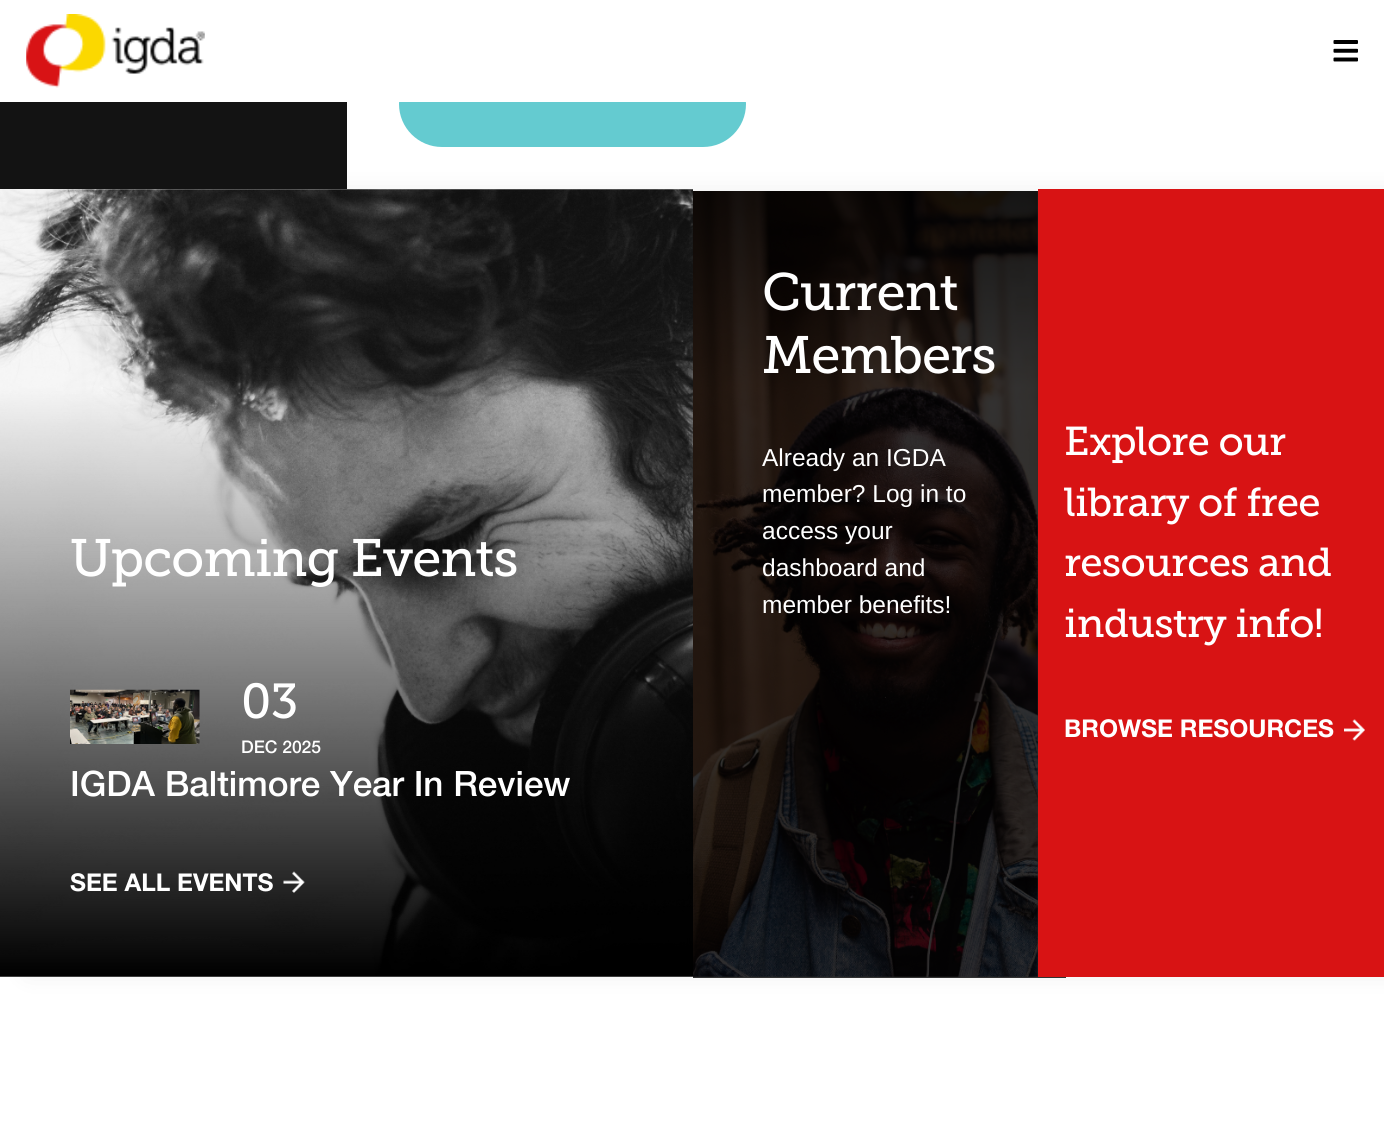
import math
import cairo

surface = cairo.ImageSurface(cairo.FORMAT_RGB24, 1384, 1136)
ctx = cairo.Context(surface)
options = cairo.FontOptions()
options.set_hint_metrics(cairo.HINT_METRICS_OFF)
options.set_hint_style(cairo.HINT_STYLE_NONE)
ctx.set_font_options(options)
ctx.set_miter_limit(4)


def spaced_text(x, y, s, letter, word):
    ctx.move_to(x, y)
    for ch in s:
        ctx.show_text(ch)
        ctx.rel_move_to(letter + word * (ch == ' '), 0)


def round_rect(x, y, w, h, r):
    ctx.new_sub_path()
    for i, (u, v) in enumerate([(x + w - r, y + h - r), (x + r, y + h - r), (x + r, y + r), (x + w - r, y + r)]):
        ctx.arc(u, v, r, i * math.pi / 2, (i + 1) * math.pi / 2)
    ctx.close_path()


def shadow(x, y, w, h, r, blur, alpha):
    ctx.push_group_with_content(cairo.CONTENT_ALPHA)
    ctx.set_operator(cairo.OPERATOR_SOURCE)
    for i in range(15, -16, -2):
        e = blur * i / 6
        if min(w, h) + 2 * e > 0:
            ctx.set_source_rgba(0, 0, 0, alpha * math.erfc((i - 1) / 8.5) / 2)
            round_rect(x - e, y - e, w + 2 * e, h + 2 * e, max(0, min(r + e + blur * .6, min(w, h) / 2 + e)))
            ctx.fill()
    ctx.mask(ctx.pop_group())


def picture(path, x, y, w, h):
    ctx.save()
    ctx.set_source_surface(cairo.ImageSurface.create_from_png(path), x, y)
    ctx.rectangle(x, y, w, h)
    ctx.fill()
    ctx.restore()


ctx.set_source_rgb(1, 1, 1)
ctx.paint()
ctx.set_source_rgb(0.392, 0.796, 0.816)
round_rect(399, 61, 347, 86, 43)
ctx.fill()
ctx.set_source_rgb(1, 1, 1)
ctx.rectangle(399, 61, 347, 41)
ctx.fill()
picture("img1.png", 26, 14, 179, 74)
picture("img2.png", 1333, 40, 25, 22)
ctx.set_source_rgb(0, 0, 0)
shadow(28, 196, 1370, 774, 0, 13, 0.1)
ctx.set_source_rgb(0.078, 0.078, 0.078)
ctx.rectangle(0, 102, 347, 87)
ctx.fill()
picture("img3.png", 0, 189, 693, 788)
ctx.select_font_face("Museo Slab")
ctx.set_font_size(52.5)
ctx.set_source_rgb(1, 1, 1)
spaced_text(70, 576, "Upcoming Events", -1, 0)
picture("img4.png", 70, 689, 130, 55)
ctx.set_font_size(49)
spaced_text(241, 718, "03", -1, 0)
ctx.select_font_face("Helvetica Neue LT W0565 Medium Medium")
ctx.set_font_size(17.5)
ctx.move_to(241, 753)
ctx.show_text("DEC 2025")
ctx.set_font_size(35)
ctx.move_to(70, 796)
ctx.show_text("IGDA Baltimore Year In Review")
ctx.select_font_face("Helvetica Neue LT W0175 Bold", cairo.FONT_SLANT_NORMAL, cairo.FONT_WEIGHT_BOLD)
ctx.set_font_size(24.5)
ctx.move_to(70, 891)
ctx.show_text("SEE ALL EVENTS")
picture("img5.png", 283, 871, 22, 22)
picture("img6.png", 693, 191, 345, 786)
ctx.set_source_rgba(0.004, 0.004, 0.004, 0.8)
ctx.rectangle(693, 191, 373, 787)
ctx.fill()
ctx.select_font_face("Museo Slab")
ctx.set_font_size(52.5)
ctx.set_source_rgb(1, 1, 1)
spaced_text(762, 310, "Current", -1, 0)
spaced_text(762, 373, "Members", -1, 0)
ctx.select_font_face("Liberation Sans")
ctx.set_font_size(24.5)
ctx.move_to(762, 466)
ctx.show_text("Already an IGDA")
ctx.move_to(762, 502)
ctx.show_text("member? Log in to")
ctx.move_to(762, 539)
ctx.show_text("access your")
ctx.move_to(762, 576)
ctx.show_text("dashboard and")
ctx.move_to(762, 613)
ctx.show_text("member benefits!")
ctx.set_source_rgb(0.847, 0.075, 0.082)
ctx.rectangle(1038, 189, 346, 788)
ctx.fill()
ctx.select_font_face("Museo Slab")
ctx.set_font_size(40.25)
ctx.set_source_rgb(1, 1, 1)
spaced_text(1064, 455, "Explore our", -0.75, 0)
spaced_text(1064, 516, "library of free", -0.75, 0)
spaced_text(1064, 576, "resources and", -0.75, 0)
spaced_text(1064, 637, "industry info!", -0.75, 0)
ctx.select_font_face("Helvetica Neue LT W0175 Bold", cairo.FONT_SLANT_NORMAL, cairo.FONT_WEIGHT_BOLD)
ctx.set_font_size(24.5)
ctx.move_to(1064, 737)
ctx.show_text("BROWSE RESOURCES")
picture("img7.png", 1344, 719, 21, 22)
surface.write_to_png("page.png")
